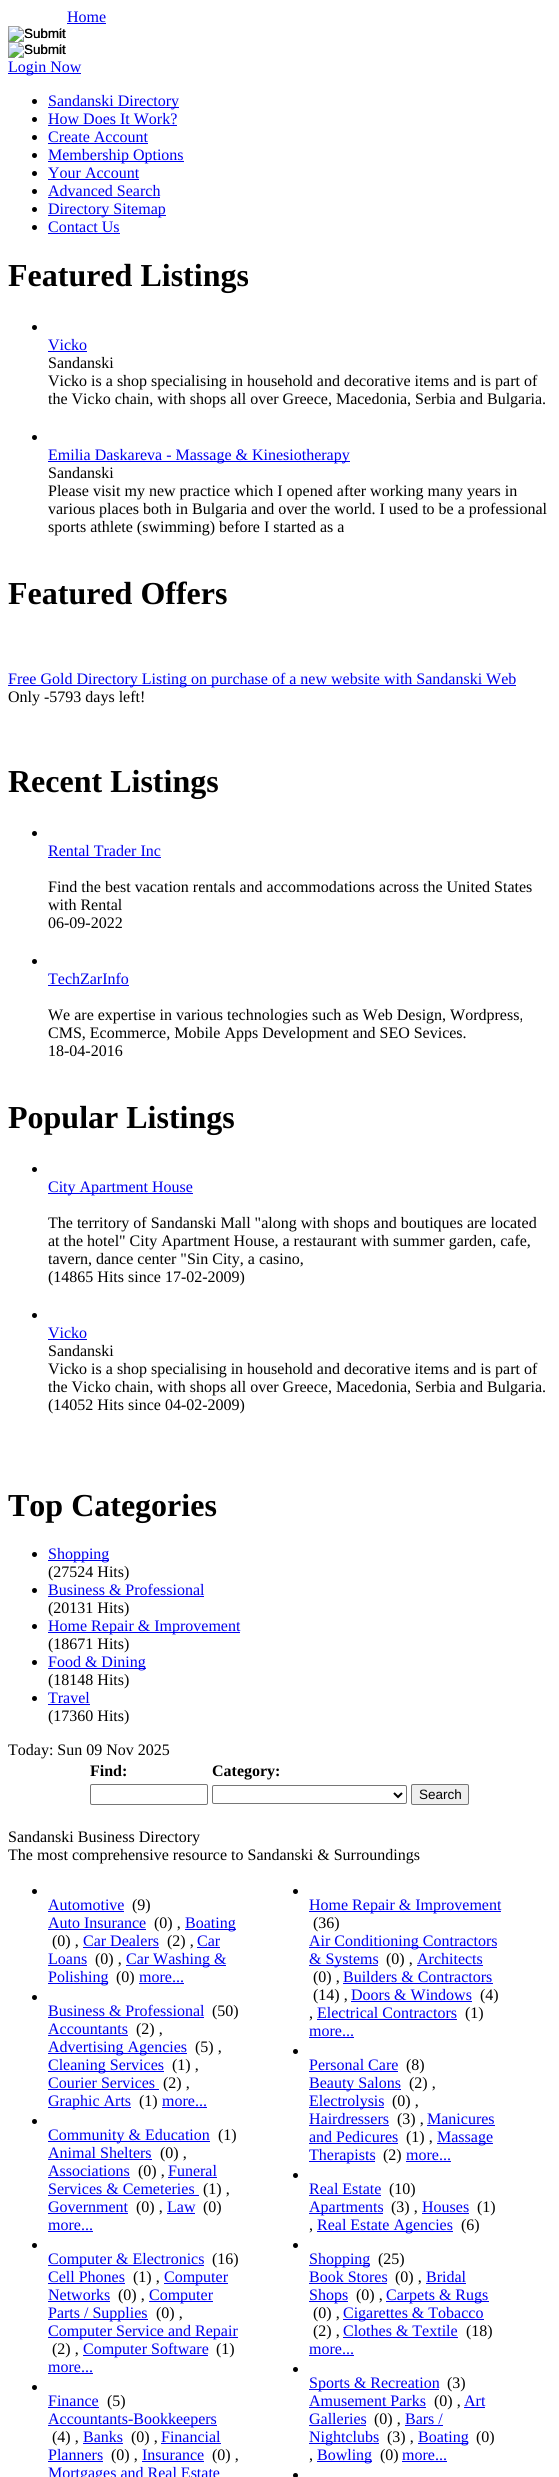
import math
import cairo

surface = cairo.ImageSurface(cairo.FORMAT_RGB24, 559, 2477)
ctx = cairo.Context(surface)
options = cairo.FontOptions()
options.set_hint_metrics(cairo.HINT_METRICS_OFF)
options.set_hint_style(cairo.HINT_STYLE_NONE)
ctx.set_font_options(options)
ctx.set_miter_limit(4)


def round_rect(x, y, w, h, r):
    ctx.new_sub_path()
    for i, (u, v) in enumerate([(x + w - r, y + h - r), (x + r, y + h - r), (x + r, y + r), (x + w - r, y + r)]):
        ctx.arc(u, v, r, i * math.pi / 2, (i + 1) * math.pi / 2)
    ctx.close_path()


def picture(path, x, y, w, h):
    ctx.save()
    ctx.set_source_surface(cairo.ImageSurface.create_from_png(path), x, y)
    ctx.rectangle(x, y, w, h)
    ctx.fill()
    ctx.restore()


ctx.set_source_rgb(1, 1, 1)
ctx.paint()
ctx.select_font_face("Liberation Serif")
ctx.set_font_size(16)
ctx.set_source_rgb(0, 0, 0.933)
ctx.move_to(67, 22)
ctx.show_text("Home")
ctx.rectangle(67, 23, 39, 1)
ctx.fill()
picture("img1.png", 8, 26, 57, 16)
ctx.select_font_face("Liberation Sans")
ctx.set_font_size(13.5)
ctx.set_source_rgb(0, 0, 0)
ctx.move_to(24, 38)
ctx.show_text("Submit")
picture("img1.png", 8, 42, 57, 16)
ctx.move_to(24, 54)
ctx.show_text("Submit")
ctx.set_source_rgb(0, 0, 0.933)
ctx.rectangle(8, 73, 73, 1)
ctx.fill()
ctx.select_font_face("Liberation Serif")
ctx.set_font_size(16)
ctx.move_to(8, 72)
ctx.show_text("Login Now")
ctx.set_source_rgb(0, 0, 0)
ctx.new_path()
ctx.arc(34.5, 101.5, 2.5, 0, 2 * math.pi)
ctx.fill()
ctx.set_source_rgb(0, 0, 0.933)
ctx.rectangle(48, 107, 131, 1)
ctx.fill()
ctx.move_to(48, 106)
ctx.show_text("Sandanski Directory")
ctx.set_source_rgb(0, 0, 0)
ctx.new_path()
ctx.arc(34.5, 119.5, 2.5, 0, 2 * math.pi)
ctx.fill()
ctx.set_source_rgb(0, 0, 0.933)
ctx.move_to(48, 124)
ctx.show_text("How Does It Work?")
ctx.rectangle(48, 125, 129, 1)
ctx.fill()
ctx.set_source_rgb(0, 0, 0)
ctx.arc(34.5, 137.5, 2.5, 0, 2 * math.pi)
ctx.fill()
ctx.set_source_rgb(0, 0, 0.933)
ctx.move_to(48, 142)
ctx.show_text("Create Account")
ctx.rectangle(48, 143, 100, 1)
ctx.fill()
ctx.set_source_rgb(0, 0, 0)
ctx.arc(34.5, 155.5, 2.5, 0, 2 * math.pi)
ctx.fill()
ctx.set_source_rgb(0, 0, 0.933)
ctx.rectangle(48, 161, 136, 1)
ctx.fill()
ctx.move_to(48, 160)
ctx.show_text("Membership Options")
ctx.set_source_rgb(0, 0, 0)
ctx.new_path()
ctx.arc(34.5, 173.5, 2.5, 0, 2 * math.pi)
ctx.fill()
ctx.set_source_rgb(0, 0, 0.933)
ctx.move_to(48, 178)
ctx.show_text("Your Account")
ctx.rectangle(48, 179, 91, 1)
ctx.fill()
ctx.set_source_rgb(0, 0, 0)
ctx.arc(34.5, 191.5, 2.5, 0, 2 * math.pi)
ctx.fill()
ctx.set_source_rgb(0, 0, 0.933)
ctx.move_to(48, 196)
ctx.show_text("Advanced Search")
ctx.rectangle(48, 197, 112, 1)
ctx.fill()
ctx.set_source_rgb(0, 0, 0)
ctx.arc(34.5, 209.5, 2.5, 0, 2 * math.pi)
ctx.fill()
ctx.set_source_rgb(0, 0, 0.933)
ctx.rectangle(48, 215, 118, 1)
ctx.fill()
ctx.move_to(48, 214)
ctx.show_text("Directory Sitemap")
ctx.set_source_rgb(0, 0, 0)
ctx.new_path()
ctx.arc(34.5, 227.5, 2.5, 0, 2 * math.pi)
ctx.fill()
ctx.set_source_rgb(0, 0, 0.933)
ctx.move_to(48, 232)
ctx.show_text("Contact Us")
ctx.rectangle(48, 233, 72, 1)
ctx.fill()
ctx.select_font_face("Liberation Serif", cairo.FONT_SLANT_NORMAL, cairo.FONT_WEIGHT_BOLD)
ctx.set_font_size(32)
ctx.set_source_rgb(0, 0, 0)
ctx.move_to(8, 286)
ctx.show_text("Featured Listings")
ctx.new_path()
ctx.arc(34.5, 327.5, 2.5, 0, 2 * math.pi)
ctx.fill()
ctx.select_font_face("Liberation Serif")
ctx.set_font_size(16)
ctx.set_source_rgb(0, 0, 0.933)
ctx.move_to(48, 350)
ctx.show_text("Vicko")
ctx.rectangle(48, 351, 39, 1)
ctx.fill()
ctx.set_source_rgb(0, 0, 0)
ctx.move_to(48, 368)
ctx.show_text("Sandanski")
ctx.move_to(48, 386)
ctx.show_text("Vicko is a shop specialising in household and decorative items and is part of")
ctx.move_to(48, 404)
ctx.show_text("the Vicko chain, with shops all over Greece, Macedonia, Serbia and Bulgaria.")
ctx.new_path()
ctx.arc(34.5, 437.5, 2.5, 0, 2 * math.pi)
ctx.fill()
ctx.set_source_rgb(0, 0, 0.933)
ctx.rectangle(48, 461, 302, 1)
ctx.fill()
ctx.move_to(48, 460)
ctx.show_text("Emilia Daskareva - Massage & Kinesiotherapy")
ctx.set_source_rgb(0, 0, 0)
ctx.move_to(48, 478)
ctx.show_text("Sandanski")
ctx.move_to(48, 496)
ctx.show_text("Please visit my new practice which I opened after working many years in")
ctx.move_to(48, 514)
ctx.show_text("various places both in Bulgaria and over the world. I used to be a professional")
ctx.move_to(48, 532)
ctx.show_text("sports athlete (swimming) before I started as a")
ctx.select_font_face("Liberation Serif", cairo.FONT_SLANT_NORMAL, cairo.FONT_WEIGHT_BOLD)
ctx.set_font_size(32)
ctx.move_to(8, 604)
ctx.show_text("Featured Offers")
ctx.set_source_rgb(0, 0, 0.933)
ctx.rectangle(8, 685, 508, 1)
ctx.fill()
ctx.select_font_face("Liberation Serif")
ctx.set_font_size(16)
ctx.move_to(8, 684)
ctx.show_text("Free Gold Directory Listing on purchase of a new website with Sandanski Web")
ctx.set_source_rgb(0, 0, 0)
ctx.move_to(8, 702)
ctx.show_text("Only -5793 days left!")
ctx.select_font_face("Liberation Serif", cairo.FONT_SLANT_NORMAL, cairo.FONT_WEIGHT_BOLD)
ctx.set_font_size(32)
ctx.move_to(8, 792)
ctx.show_text("Recent Listings")
ctx.new_path()
ctx.arc(34.5, 833.5, 2.5, 0, 2 * math.pi)
ctx.fill()
ctx.select_font_face("Liberation Serif")
ctx.set_font_size(16)
ctx.set_source_rgb(0, 0, 0.933)
ctx.move_to(48, 856)
ctx.show_text("Rental Trader Inc")
ctx.rectangle(48, 857, 113, 1)
ctx.fill()
ctx.set_source_rgb(0, 0, 0)
ctx.move_to(48, 892)
ctx.show_text("Find the best vacation rentals and accommodations across the United States")
ctx.move_to(48, 910)
ctx.show_text("with Rental")
ctx.move_to(48, 928)
ctx.show_text("06-09-2022")
ctx.new_path()
ctx.arc(34.5, 961.5, 2.5, 0, 2 * math.pi)
ctx.fill()
ctx.set_source_rgb(0, 0, 0.933)
ctx.move_to(48, 984)
ctx.show_text("TechZarInfo")
ctx.rectangle(48, 985, 81, 1)
ctx.fill()
ctx.set_source_rgb(0, 0, 0)
ctx.move_to(48, 1020)
ctx.show_text("We are expertise in various technologies such as Web Design, Wordpress,")
ctx.move_to(48, 1038)
ctx.show_text("CMS, Ecommerce, Mobile Apps Development and SEO Sevices.")
ctx.move_to(48, 1056)
ctx.show_text("18-04-2016")
ctx.select_font_face("Liberation Serif", cairo.FONT_SLANT_NORMAL, cairo.FONT_WEIGHT_BOLD)
ctx.set_font_size(32)
ctx.move_to(8, 1128)
ctx.show_text("Popular Listings")
ctx.new_path()
ctx.arc(34.5, 1169.5, 2.5, 0, 2 * math.pi)
ctx.fill()
ctx.set_source_rgb(0, 0, 0.933)
ctx.rectangle(48, 1193, 145, 1)
ctx.fill()
ctx.select_font_face("Liberation Serif")
ctx.set_font_size(16)
ctx.move_to(48, 1192)
ctx.show_text("City Apartment House")
ctx.set_source_rgb(0, 0, 0)
ctx.move_to(48, 1228)
ctx.show_text("The territory of Sandanski Mall \"along with shops and boutiques are located")
ctx.move_to(48, 1246)
ctx.show_text("at the hotel\" City Apartment House, a restaurant with summer garden, cafe,")
ctx.move_to(48, 1264)
ctx.show_text("tavern, dance center \"Sin City, a casino,")
ctx.move_to(48, 1282)
ctx.show_text("(14865 Hits since 17-02-2009)")
ctx.new_path()
ctx.arc(34.5, 1315.5, 2.5, 0, 2 * math.pi)
ctx.fill()
ctx.set_source_rgb(0, 0, 0.933)
ctx.move_to(48, 1338)
ctx.show_text("Vicko")
ctx.rectangle(48, 1339, 39, 1)
ctx.fill()
ctx.set_source_rgb(0, 0, 0)
ctx.move_to(48, 1356)
ctx.show_text("Sandanski")
ctx.move_to(48, 1374)
ctx.show_text("Vicko is a shop specialising in household and decorative items and is part of")
ctx.move_to(48, 1392)
ctx.show_text("the Vicko chain, with shops all over Greece, Macedonia, Serbia and Bulgaria.")
ctx.move_to(48, 1410)
ctx.show_text("(14052 Hits since 04-02-2009)")
ctx.select_font_face("Liberation Serif", cairo.FONT_SLANT_NORMAL, cairo.FONT_WEIGHT_BOLD)
ctx.set_font_size(32)
ctx.move_to(8, 1516)
ctx.show_text("Top Categories")
ctx.new_path()
ctx.arc(34.5, 1554.5, 2.5, 0, 2 * math.pi)
ctx.fill()
ctx.set_source_rgb(0, 0, 0.933)
ctx.rectangle(48, 1560, 61, 1)
ctx.fill()
ctx.select_font_face("Liberation Serif")
ctx.set_font_size(16)
ctx.move_to(48, 1559)
ctx.show_text("Shopping")
ctx.set_source_rgb(0, 0, 0)
ctx.move_to(48, 1577)
ctx.show_text("(27524 Hits)")
ctx.new_path()
ctx.arc(34.5, 1590.5, 2.5, 0, 2 * math.pi)
ctx.fill()
ctx.set_source_rgb(0, 0, 0.933)
ctx.move_to(48, 1595)
ctx.show_text("Business & Professional")
ctx.rectangle(48, 1596, 156, 1)
ctx.fill()
ctx.set_source_rgb(0, 0, 0)
ctx.move_to(48, 1613)
ctx.show_text("(20131 Hits)")
ctx.new_path()
ctx.arc(34.5, 1626.5, 2.5, 0, 2 * math.pi)
ctx.fill()
ctx.set_source_rgb(0, 0, 0.933)
ctx.rectangle(48, 1632, 192, 1)
ctx.fill()
ctx.move_to(48, 1631)
ctx.show_text("Home Repair & Improvement")
ctx.set_source_rgb(0, 0, 0)
ctx.move_to(48, 1649)
ctx.show_text("(18671 Hits)")
ctx.new_path()
ctx.arc(34.5, 1662.5, 2.5, 0, 2 * math.pi)
ctx.fill()
ctx.set_source_rgb(0, 0, 0.933)
ctx.rectangle(48, 1668, 98, 1)
ctx.fill()
ctx.move_to(48, 1667)
ctx.show_text("Food & Dining")
ctx.set_source_rgb(0, 0, 0)
ctx.move_to(48, 1685)
ctx.show_text("(18148 Hits)")
ctx.new_path()
ctx.arc(34.5, 1698.5, 2.5, 0, 2 * math.pi)
ctx.fill()
ctx.set_source_rgb(0, 0, 0.933)
ctx.move_to(48, 1703)
ctx.show_text("Travel")
ctx.rectangle(48, 1704, 42, 1)
ctx.fill()
ctx.set_source_rgb(0, 0, 0)
ctx.move_to(48, 1721)
ctx.show_text("(17360 Hits)")
ctx.move_to(8, 1755)
ctx.show_text("Today: Sun 09 Nov 2025")
ctx.select_font_face("Liberation Serif", cairo.FONT_SLANT_NORMAL, cairo.FONT_WEIGHT_BOLD)
ctx.move_to(90, 1776)
ctx.show_text("Find:")
ctx.move_to(212, 1776)
ctx.show_text("Category:")
round_rect(90.5, 1784.5, 117, 20, 1.5)
ctx.set_source_rgb(0.463, 0.463, 0.463)
ctx.set_line_width(1)
ctx.stroke()
round_rect(212.5, 1785.5, 194, 18, 1.5)
ctx.stroke()
ctx.new_path()
ctx.move_to(394, 1793)
ctx.line_to(398, 1797)
ctx.line_to(402, 1793)
ctx.set_source_rgb(0, 0, 0)
ctx.set_line_width(2)
ctx.stroke()
ctx.set_source_rgb(0.937, 0.937, 0.937)
round_rect(411.5, 1784.5, 57, 20, 1.5)
ctx.fill_preserve()
ctx.set_source_rgb(0.463, 0.463, 0.463)
ctx.set_line_width(1)
ctx.stroke()
ctx.select_font_face("Liberation Sans")
ctx.set_font_size(13.5)
ctx.set_source_rgb(0, 0, 0)
ctx.move_to(419, 1799)
ctx.show_text("Search")
ctx.select_font_face("Liberation Serif")
ctx.set_font_size(16)
ctx.move_to(8, 1842)
ctx.show_text("Sandanski Business Directory")
ctx.move_to(8, 1860)
ctx.show_text("The most comprehensive resource to Sandanski & Surroundings")
ctx.new_path()
ctx.arc(34.5, 1891.5, 2.5, 0, 2 * math.pi)
ctx.fill()
ctx.set_source_rgb(0, 0, 0.933)
ctx.move_to(48, 1910)
ctx.show_text("Automotive")
ctx.rectangle(48, 1911, 76, 1)
ctx.fill()
ctx.set_source_rgb(0, 0, 0)
ctx.move_to(132, 1910)
ctx.show_text("(9)")
ctx.set_source_rgb(0, 0, 0.933)
ctx.move_to(48, 1928)
ctx.show_text("Auto Insurance")
ctx.rectangle(48, 1929, 98, 1)
ctx.fill()
ctx.set_source_rgb(0, 0, 0)
ctx.move_to(154, 1928)
ctx.show_text("(0) ,")
ctx.set_source_rgb(0, 0, 0.933)
ctx.rectangle(185, 1929, 51, 1)
ctx.fill()
ctx.move_to(185, 1928)
ctx.show_text("Boating")
ctx.set_source_rgb(0, 0, 0)
ctx.move_to(52, 1946)
ctx.show_text("(0) ,")
ctx.set_source_rgb(0, 0, 0.933)
ctx.move_to(83, 1946)
ctx.show_text("Car Dealers")
ctx.rectangle(83, 1947, 76, 1)
ctx.fill()
ctx.set_source_rgb(0, 0, 0)
ctx.move_to(167, 1946)
ctx.show_text("(2) ,")
ctx.set_source_rgb(0, 0, 0.933)
ctx.move_to(197, 1946)
ctx.show_text("Car")
ctx.rectangle(197, 1947, 23, 1)
ctx.fill()
ctx.move_to(48, 1964)
ctx.show_text("Loans")
ctx.rectangle(48, 1965, 39, 1)
ctx.fill()
ctx.set_source_rgb(0, 0, 0)
ctx.move_to(95, 1964)
ctx.show_text("(0) ,")
ctx.set_source_rgb(0, 0, 0.933)
ctx.rectangle(126, 1965, 100, 1)
ctx.fill()
ctx.move_to(126, 1964)
ctx.show_text("Car Washing &")
ctx.rectangle(48, 1983, 60, 1)
ctx.fill()
ctx.move_to(48, 1982)
ctx.show_text("Polishing")
ctx.set_source_rgb(0, 0, 0)
ctx.move_to(116, 1982)
ctx.show_text("(0)")
ctx.set_source_rgb(0, 0, 0.933)
ctx.move_to(139, 1982)
ctx.show_text("more...")
ctx.rectangle(139, 1983, 45, 1)
ctx.fill()
ctx.set_source_rgb(0, 0, 0)
ctx.arc(34.5, 1997.5, 2.5, 0, 2 * math.pi)
ctx.fill()
ctx.set_source_rgb(0, 0, 0.933)
ctx.move_to(48, 2016)
ctx.show_text("Business & Professional")
ctx.rectangle(48, 2017, 156, 1)
ctx.fill()
ctx.set_source_rgb(0, 0, 0)
ctx.move_to(212, 2016)
ctx.show_text("(50)")
ctx.set_source_rgb(0, 0, 0.933)
ctx.move_to(48, 2034)
ctx.show_text("Accountants")
ctx.rectangle(48, 2035, 80, 1)
ctx.fill()
ctx.set_source_rgb(0, 0, 0)
ctx.move_to(136, 2034)
ctx.show_text("(2) ,")
ctx.set_source_rgb(0, 0, 0.933)
ctx.rectangle(48, 2053, 139, 1)
ctx.fill()
ctx.move_to(48, 2052)
ctx.show_text("Advertising Agencies")
ctx.set_source_rgb(0, 0, 0)
ctx.move_to(195, 2052)
ctx.show_text("(5) ,")
ctx.set_source_rgb(0, 0, 0.933)
ctx.rectangle(48, 2071, 116, 1)
ctx.fill()
ctx.move_to(48, 2070)
ctx.show_text("Cleaning Services")
ctx.set_source_rgb(0, 0, 0)
ctx.move_to(172, 2070)
ctx.show_text("(1) ,")
ctx.set_source_rgb(0, 0, 0.933)
ctx.move_to(48, 2088)
ctx.show_text("Courier Services")
ctx.rectangle(48, 2089, 111, 1)
ctx.fill()
ctx.set_source_rgb(0, 0, 0)
ctx.move_to(163, 2088)
ctx.show_text("(2) ,")
ctx.set_source_rgb(0, 0, 0.933)
ctx.rectangle(48, 2107, 83, 1)
ctx.fill()
ctx.move_to(48, 2106)
ctx.show_text("Graphic Arts")
ctx.set_source_rgb(0, 0, 0)
ctx.move_to(139, 2106)
ctx.show_text("(1)")
ctx.set_source_rgb(0, 0, 0.933)
ctx.move_to(162, 2106)
ctx.show_text("more...")
ctx.rectangle(162, 2107, 45, 1)
ctx.fill()
ctx.set_source_rgb(0, 0, 0)
ctx.arc(34.5, 2121.5, 2.5, 0, 2 * math.pi)
ctx.fill()
ctx.set_source_rgb(0, 0, 0.933)
ctx.rectangle(48, 2141, 162, 1)
ctx.fill()
ctx.move_to(48, 2140)
ctx.show_text("Community & Education")
ctx.set_source_rgb(0, 0, 0)
ctx.move_to(218, 2140)
ctx.show_text("(1)")
ctx.set_source_rgb(0, 0, 0.933)
ctx.move_to(48, 2158)
ctx.show_text("Animal Shelters")
ctx.rectangle(48, 2159, 104, 1)
ctx.fill()
ctx.set_source_rgb(0, 0, 0)
ctx.move_to(160, 2158)
ctx.show_text("(0) ,")
ctx.set_source_rgb(0, 0, 0.933)
ctx.move_to(48, 2176)
ctx.show_text("Associations")
ctx.rectangle(48, 2177, 82, 1)
ctx.fill()
ctx.set_source_rgb(0, 0, 0)
ctx.move_to(138, 2176)
ctx.show_text("(0) ,")
ctx.set_source_rgb(0, 0, 0.933)
ctx.move_to(168, 2176)
ctx.show_text("Funeral")
ctx.rectangle(168, 2177, 49, 1)
ctx.fill()
ctx.move_to(48, 2194)
ctx.show_text("Services & Cemeteries")
ctx.rectangle(48, 2195, 151, 1)
ctx.fill()
ctx.set_source_rgb(0, 0, 0)
ctx.move_to(203, 2194)
ctx.show_text("(1) ,")
ctx.set_source_rgb(0, 0, 0.933)
ctx.move_to(48, 2212)
ctx.show_text("Government")
ctx.rectangle(48, 2213, 80, 1)
ctx.fill()
ctx.set_source_rgb(0, 0, 0)
ctx.move_to(136, 2212)
ctx.show_text("(0) ,")
ctx.set_source_rgb(0, 0, 0.933)
ctx.move_to(167, 2212)
ctx.show_text("Law")
ctx.rectangle(167, 2213, 28, 1)
ctx.fill()
ctx.set_source_rgb(0, 0, 0)
ctx.move_to(203, 2212)
ctx.show_text("(0)")
ctx.set_source_rgb(0, 0, 0.933)
ctx.move_to(48, 2230)
ctx.show_text("more...")
ctx.rectangle(48, 2231, 45, 1)
ctx.fill()
ctx.set_source_rgb(0, 0, 0)
ctx.arc(34.5, 2245.5, 2.5, 0, 2 * math.pi)
ctx.fill()
ctx.set_source_rgb(0, 0, 0.933)
ctx.rectangle(48, 2265, 156, 1)
ctx.fill()
ctx.move_to(48, 2264)
ctx.show_text("Computer & Electronics")
ctx.set_source_rgb(0, 0, 0)
ctx.move_to(212, 2264)
ctx.show_text("(16)")
ctx.set_source_rgb(0, 0, 0.933)
ctx.move_to(48, 2282)
ctx.show_text("Cell Phones")
ctx.rectangle(48, 2283, 77, 1)
ctx.fill()
ctx.set_source_rgb(0, 0, 0)
ctx.move_to(133, 2282)
ctx.show_text("(1) ,")
ctx.set_source_rgb(0, 0, 0.933)
ctx.rectangle(164, 2283, 64, 1)
ctx.fill()
ctx.move_to(164, 2282)
ctx.show_text("Computer")
ctx.move_to(48, 2300)
ctx.show_text("Networks")
ctx.rectangle(48, 2301, 62, 1)
ctx.fill()
ctx.set_source_rgb(0, 0, 0)
ctx.move_to(118, 2300)
ctx.show_text("(0) ,")
ctx.set_source_rgb(0, 0, 0.933)
ctx.rectangle(149, 2301, 64, 1)
ctx.fill()
ctx.move_to(149, 2300)
ctx.show_text("Computer")
ctx.rectangle(48, 2319, 100, 1)
ctx.fill()
ctx.move_to(48, 2318)
ctx.show_text("Parts / Supplies")
ctx.set_source_rgb(0, 0, 0)
ctx.move_to(156, 2318)
ctx.show_text("(0) ,")
ctx.set_source_rgb(0, 0, 0.933)
ctx.rectangle(48, 2337, 190, 1)
ctx.fill()
ctx.move_to(48, 2336)
ctx.show_text("Computer Service and Repair")
ctx.set_source_rgb(0, 0, 0)
ctx.move_to(52, 2354)
ctx.show_text("(2) ,")
ctx.set_source_rgb(0, 0, 0.933)
ctx.rectangle(83, 2355, 125, 1)
ctx.fill()
ctx.move_to(83, 2354)
ctx.show_text("Computer Software")
ctx.set_source_rgb(0, 0, 0)
ctx.move_to(216, 2354)
ctx.show_text("(1)")
ctx.set_source_rgb(0, 0, 0.933)
ctx.move_to(48, 2372)
ctx.show_text("more...")
ctx.rectangle(48, 2373, 45, 1)
ctx.fill()
ctx.set_source_rgb(0, 0, 0)
ctx.arc(34.5, 2387.5, 2.5, 0, 2 * math.pi)
ctx.fill()
ctx.set_source_rgb(0, 0, 0.933)
ctx.move_to(48, 2406)
ctx.show_text("Finance")
ctx.rectangle(48, 2407, 51, 1)
ctx.fill()
ctx.set_source_rgb(0, 0, 0)
ctx.move_to(107, 2406)
ctx.show_text("(5)")
ctx.set_source_rgb(0, 0, 0.933)
ctx.rectangle(48, 2425, 169, 1)
ctx.fill()
ctx.move_to(48, 2424)
ctx.show_text("Accountants-Bookkeepers")
ctx.set_source_rgb(0, 0, 0)
ctx.move_to(52, 2442)
ctx.show_text("(4) ,")
ctx.set_source_rgb(0, 0, 0.933)
ctx.move_to(83, 2442)
ctx.show_text("Banks")
ctx.rectangle(83, 2443, 40, 1)
ctx.fill()
ctx.set_source_rgb(0, 0, 0)
ctx.move_to(131, 2442)
ctx.show_text("(0) ,")
ctx.set_source_rgb(0, 0, 0.933)
ctx.move_to(161, 2442)
ctx.show_text("Financial")
ctx.rectangle(161, 2443, 60, 1)
ctx.fill()
ctx.move_to(48, 2460)
ctx.show_text("Planners")
ctx.rectangle(48, 2461, 55, 1)
ctx.fill()
ctx.set_source_rgb(0, 0, 0)
ctx.move_to(111, 2460)
ctx.show_text("(0) ,")
ctx.set_source_rgb(0, 0, 0.933)
ctx.move_to(142, 2460)
ctx.show_text("Insurance")
ctx.rectangle(142, 2461, 62, 1)
ctx.fill()
ctx.set_source_rgb(0, 0, 0)
ctx.move_to(212, 2460)
ctx.show_text("(0) ,")
ctx.set_source_rgb(0, 0, 0.933)
ctx.move_to(48, 2478)
ctx.show_text("Mortgages and Real Estate")
ctx.set_source_rgb(0, 0, 0)
ctx.new_path()
ctx.arc(295.5, 1891.5, 2.5, 0, 2 * math.pi)
ctx.fill()
ctx.set_source_rgb(0, 0, 0.933)
ctx.rectangle(309, 1911, 192, 1)
ctx.fill()
ctx.move_to(309, 1910)
ctx.show_text("Home Repair & Improvement")
ctx.set_source_rgb(0, 0, 0)
ctx.move_to(313, 1928)
ctx.show_text("(36)")
ctx.set_source_rgb(0, 0, 0.933)
ctx.rectangle(309, 1947, 188, 1)
ctx.fill()
ctx.move_to(309, 1946)
ctx.show_text("Air Conditioning Contractors")
ctx.rectangle(309, 1965, 69, 1)
ctx.fill()
ctx.move_to(309, 1964)
ctx.show_text("& Systems")
ctx.set_source_rgb(0, 0, 0)
ctx.move_to(386, 1964)
ctx.show_text("(0) ,")
ctx.set_source_rgb(0, 0, 0.933)
ctx.move_to(417, 1964)
ctx.show_text("Architects")
ctx.rectangle(417, 1965, 66, 1)
ctx.fill()
ctx.set_source_rgb(0, 0, 0)
ctx.move_to(313, 1982)
ctx.show_text("(0) ,")
ctx.set_source_rgb(0, 0, 0.933)
ctx.move_to(343, 1982)
ctx.show_text("Builders & Contractors")
ctx.rectangle(343, 1983, 150, 1)
ctx.fill()
ctx.set_source_rgb(0, 0, 0)
ctx.move_to(313, 2000)
ctx.show_text("(14) ,")
ctx.set_source_rgb(0, 0, 0.933)
ctx.move_to(351, 2000)
ctx.show_text("Doors & Windows")
ctx.rectangle(351, 2001, 121, 1)
ctx.fill()
ctx.set_source_rgb(0, 0, 0)
ctx.move_to(480, 2000)
ctx.show_text("(4)")
ctx.move_to(309, 2018)
ctx.show_text(",")
ctx.set_source_rgb(0, 0, 0.933)
ctx.move_to(317, 2018)
ctx.show_text("Electrical Contractors")
ctx.rectangle(317, 2019, 140, 1)
ctx.fill()
ctx.set_source_rgb(0, 0, 0)
ctx.move_to(465, 2018)
ctx.show_text("(1)")
ctx.set_source_rgb(0, 0, 0.933)
ctx.move_to(309, 2036)
ctx.show_text("more...")
ctx.rectangle(309, 2037, 45, 1)
ctx.fill()
ctx.set_source_rgb(0, 0, 0)
ctx.arc(295.5, 2051.5, 2.5, 0, 2 * math.pi)
ctx.fill()
ctx.set_source_rgb(0, 0, 0.933)
ctx.move_to(309, 2070)
ctx.show_text("Personal Care")
ctx.rectangle(309, 2071, 89, 1)
ctx.fill()
ctx.set_source_rgb(0, 0, 0)
ctx.move_to(406, 2070)
ctx.show_text("(8)")
ctx.set_source_rgb(0, 0, 0.933)
ctx.rectangle(309, 2089, 92, 1)
ctx.fill()
ctx.move_to(309, 2088)
ctx.show_text("Beauty Salons")
ctx.set_source_rgb(0, 0, 0)
ctx.move_to(409, 2088)
ctx.show_text("(2) ,")
ctx.set_source_rgb(0, 0, 0.933)
ctx.rectangle(309, 2107, 75, 1)
ctx.fill()
ctx.move_to(309, 2106)
ctx.show_text("Electrolysis")
ctx.set_source_rgb(0, 0, 0)
ctx.move_to(392, 2106)
ctx.show_text("(0) ,")
ctx.set_source_rgb(0, 0, 0.933)
ctx.move_to(309, 2124)
ctx.show_text("Hairdressers")
ctx.rectangle(309, 2125, 80, 1)
ctx.fill()
ctx.set_source_rgb(0, 0, 0)
ctx.move_to(397, 2124)
ctx.show_text("(3) ,")
ctx.set_source_rgb(0, 0, 0.933)
ctx.move_to(427, 2124)
ctx.show_text("Manicures")
ctx.rectangle(427, 2125, 68, 1)
ctx.fill()
ctx.move_to(309, 2142)
ctx.show_text("and Pedicures")
ctx.rectangle(309, 2143, 89, 1)
ctx.fill()
ctx.set_source_rgb(0, 0, 0)
ctx.move_to(406, 2142)
ctx.show_text("(1) ,")
ctx.set_source_rgb(0, 0, 0.933)
ctx.rectangle(437, 2143, 56, 1)
ctx.fill()
ctx.move_to(437, 2142)
ctx.show_text("Massage")
ctx.rectangle(309, 2161, 66, 1)
ctx.fill()
ctx.move_to(309, 2160)
ctx.show_text("Therapists")
ctx.set_source_rgb(0, 0, 0)
ctx.move_to(383, 2160)
ctx.show_text("(2)")
ctx.set_source_rgb(0, 0, 0.933)
ctx.move_to(406, 2160)
ctx.show_text("more...")
ctx.rectangle(406, 2161, 45, 1)
ctx.fill()
ctx.set_source_rgb(0, 0, 0)
ctx.arc(295.5, 2175.5, 2.5, 0, 2 * math.pi)
ctx.fill()
ctx.set_source_rgb(0, 0, 0.933)
ctx.move_to(309, 2194)
ctx.show_text("Real Estate")
ctx.rectangle(309, 2195, 72, 1)
ctx.fill()
ctx.set_source_rgb(0, 0, 0)
ctx.move_to(389, 2194)
ctx.show_text("(10)")
ctx.set_source_rgb(0, 0, 0.933)
ctx.rectangle(309, 2213, 74, 1)
ctx.fill()
ctx.move_to(309, 2212)
ctx.show_text("Apartments")
ctx.set_source_rgb(0, 0, 0)
ctx.move_to(391, 2212)
ctx.show_text("(3) ,")
ctx.set_source_rgb(0, 0, 0.933)
ctx.move_to(422, 2212)
ctx.show_text("Houses")
ctx.rectangle(422, 2213, 47, 1)
ctx.fill()
ctx.set_source_rgb(0, 0, 0)
ctx.move_to(477, 2212)
ctx.show_text("(1)")
ctx.move_to(309, 2230)
ctx.show_text(",")
ctx.set_source_rgb(0, 0, 0.933)
ctx.rectangle(317, 2231, 136, 1)
ctx.fill()
ctx.move_to(317, 2230)
ctx.show_text("Real Estate Agencies")
ctx.set_source_rgb(0, 0, 0)
ctx.move_to(461, 2230)
ctx.show_text("(6)")
ctx.new_path()
ctx.arc(295.5, 2245.5, 2.5, 0, 2 * math.pi)
ctx.fill()
ctx.set_source_rgb(0, 0, 0.933)
ctx.rectangle(309, 2265, 61, 1)
ctx.fill()
ctx.move_to(309, 2264)
ctx.show_text("Shopping")
ctx.set_source_rgb(0, 0, 0)
ctx.move_to(378, 2264)
ctx.show_text("(25)")
ctx.set_source_rgb(0, 0, 0.933)
ctx.move_to(309, 2282)
ctx.show_text("Book Stores")
ctx.rectangle(309, 2283, 78, 1)
ctx.fill()
ctx.set_source_rgb(0, 0, 0)
ctx.move_to(395, 2282)
ctx.show_text("(0) ,")
ctx.set_source_rgb(0, 0, 0.933)
ctx.move_to(426, 2282)
ctx.show_text("Bridal")
ctx.rectangle(426, 2283, 40, 1)
ctx.fill()
ctx.rectangle(309, 2301, 39, 1)
ctx.fill()
ctx.move_to(309, 2300)
ctx.show_text("Shops")
ctx.set_source_rgb(0, 0, 0)
ctx.move_to(356, 2300)
ctx.show_text("(0) ,")
ctx.set_source_rgb(0, 0, 0.933)
ctx.rectangle(386, 2301, 103, 1)
ctx.fill()
ctx.move_to(386, 2300)
ctx.show_text("Carpets & Rugs")
ctx.set_source_rgb(0, 0, 0)
ctx.move_to(313, 2318)
ctx.show_text("(0) ,")
ctx.set_source_rgb(0, 0, 0.933)
ctx.rectangle(343, 2319, 141, 1)
ctx.fill()
ctx.move_to(343, 2318)
ctx.show_text("Cigarettes & Tobacco")
ctx.set_source_rgb(0, 0, 0)
ctx.move_to(313, 2336)
ctx.show_text("(2) ,")
ctx.set_source_rgb(0, 0, 0.933)
ctx.move_to(343, 2336)
ctx.show_text("Clothes & Textile")
ctx.rectangle(343, 2337, 115, 1)
ctx.fill()
ctx.set_source_rgb(0, 0, 0)
ctx.move_to(466, 2336)
ctx.show_text("(18)")
ctx.set_source_rgb(0, 0, 0.933)
ctx.move_to(309, 2354)
ctx.show_text("more...")
ctx.rectangle(309, 2355, 45, 1)
ctx.fill()
ctx.set_source_rgb(0, 0, 0)
ctx.arc(295.5, 2369.5, 2.5, 0, 2 * math.pi)
ctx.fill()
ctx.set_source_rgb(0, 0, 0.933)
ctx.rectangle(309, 2389, 130, 1)
ctx.fill()
ctx.move_to(309, 2388)
ctx.show_text("Sports & Recreation")
ctx.set_source_rgb(0, 0, 0)
ctx.move_to(447, 2388)
ctx.show_text("(3)")
ctx.set_source_rgb(0, 0, 0.933)
ctx.move_to(309, 2406)
ctx.show_text("Amusement Parks")
ctx.rectangle(309, 2407, 117, 1)
ctx.fill()
ctx.set_source_rgb(0, 0, 0)
ctx.move_to(434, 2406)
ctx.show_text("(0) ,")
ctx.set_source_rgb(0, 0, 0.933)
ctx.move_to(464, 2406)
ctx.show_text("Art")
ctx.rectangle(464, 2407, 21, 1)
ctx.fill()
ctx.move_to(309, 2424)
ctx.show_text("Galleries")
ctx.rectangle(309, 2425, 57, 1)
ctx.fill()
ctx.set_source_rgb(0, 0, 0)
ctx.move_to(374, 2424)
ctx.show_text("(0) ,")
ctx.set_source_rgb(0, 0, 0.933)
ctx.move_to(405, 2424)
ctx.show_text("Bars /")
ctx.rectangle(405, 2425, 38, 1)
ctx.fill()
ctx.rectangle(309, 2443, 70, 1)
ctx.fill()
ctx.move_to(309, 2442)
ctx.show_text("Nightclubs")
ctx.set_source_rgb(0, 0, 0)
ctx.move_to(387, 2442)
ctx.show_text("(3) ,")
ctx.set_source_rgb(0, 0, 0.933)
ctx.rectangle(418, 2443, 50, 1)
ctx.fill()
ctx.move_to(418, 2442)
ctx.show_text("Boating")
ctx.set_source_rgb(0, 0, 0)
ctx.move_to(476, 2442)
ctx.show_text("(0)")
ctx.move_to(309, 2460)
ctx.show_text(",")
ctx.set_source_rgb(0, 0, 0.933)
ctx.rectangle(317, 2461, 55, 1)
ctx.fill()
ctx.move_to(317, 2460)
ctx.show_text("Bowling")
ctx.set_source_rgb(0, 0, 0)
ctx.move_to(380, 2460)
ctx.show_text("(0)")
ctx.set_source_rgb(0, 0, 0.933)
ctx.move_to(402, 2460)
ctx.show_text("more...")
ctx.rectangle(402, 2461, 45, 1)
ctx.fill()
ctx.set_source_rgb(0, 0, 0)
ctx.arc(295.5, 2475.5, 2.5, 0, 2 * math.pi)
ctx.fill()
surface.write_to_png("page.png")
